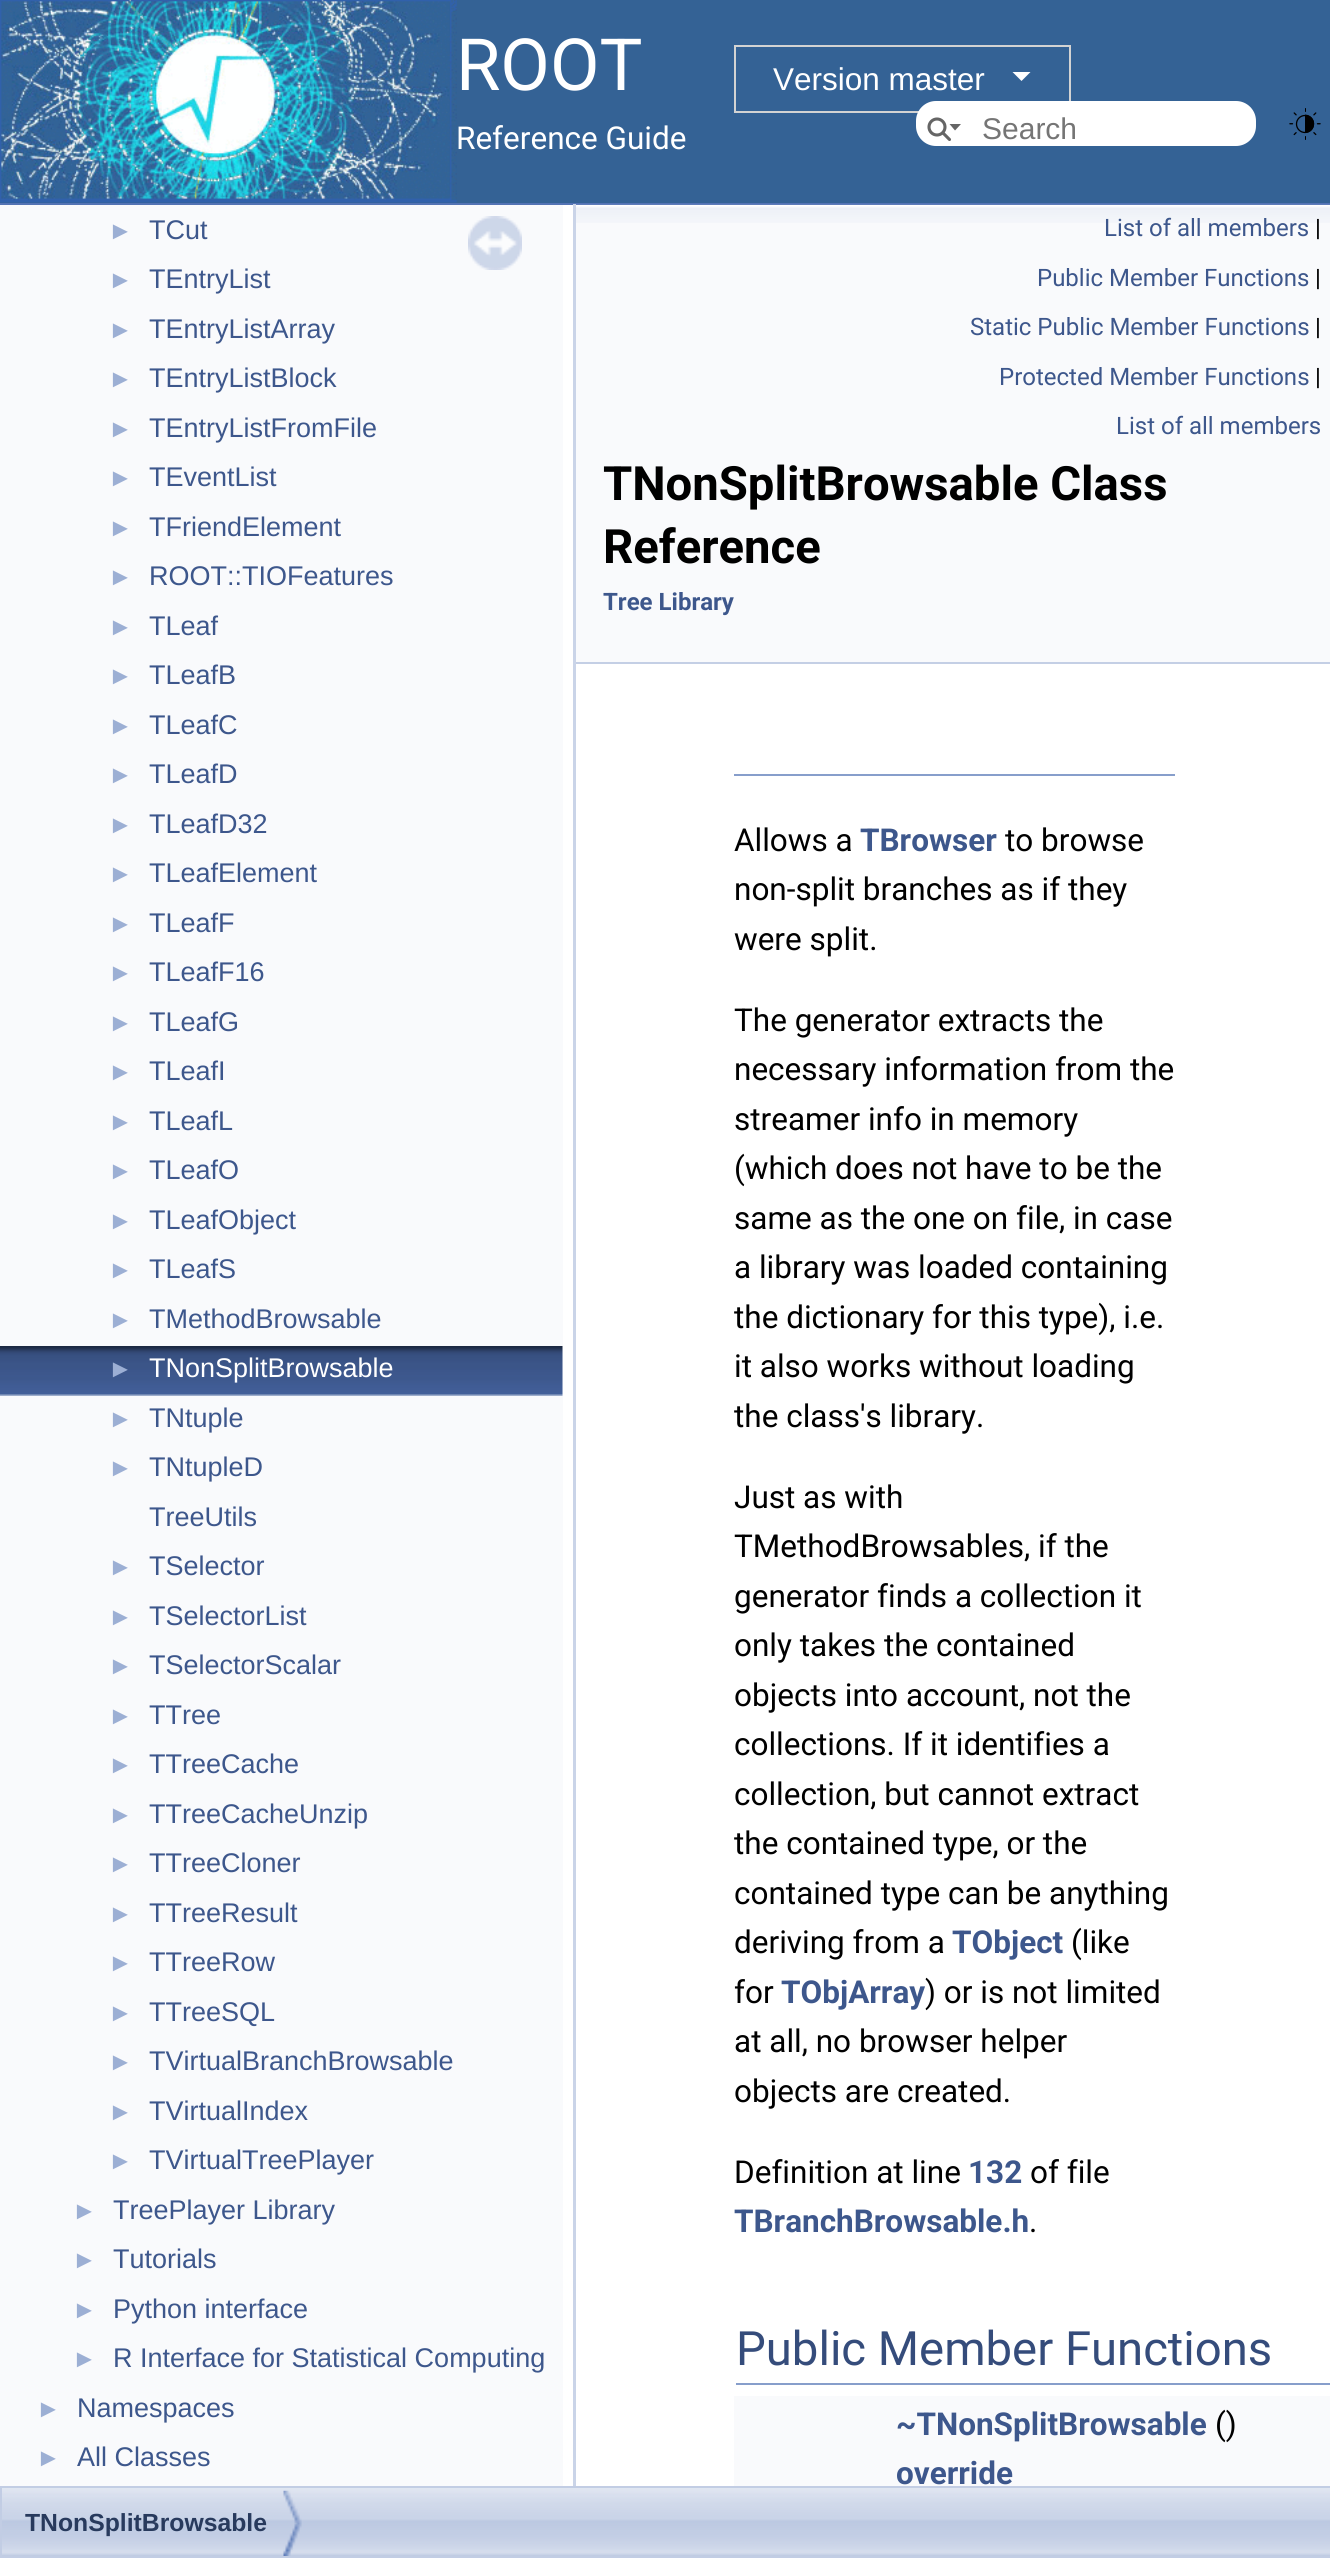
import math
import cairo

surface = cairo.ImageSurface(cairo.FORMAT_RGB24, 1330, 2558)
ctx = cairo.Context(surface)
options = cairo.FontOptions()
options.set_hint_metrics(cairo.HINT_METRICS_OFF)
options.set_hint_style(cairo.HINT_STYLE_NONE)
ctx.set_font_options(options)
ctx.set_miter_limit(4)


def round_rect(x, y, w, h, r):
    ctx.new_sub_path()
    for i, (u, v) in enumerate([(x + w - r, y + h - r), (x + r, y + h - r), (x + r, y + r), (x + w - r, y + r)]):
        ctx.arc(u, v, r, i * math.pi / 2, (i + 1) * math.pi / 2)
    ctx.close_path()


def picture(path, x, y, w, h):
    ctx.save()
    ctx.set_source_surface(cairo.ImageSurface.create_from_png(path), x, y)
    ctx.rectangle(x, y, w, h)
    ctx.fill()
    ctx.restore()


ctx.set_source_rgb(1, 1, 1)
ctx.paint()
ctx.set_source_rgb(0.325, 0.451, 0.706)
ctx.rectangle(0, 203, 1330, 2)
ctx.fill()
ctx.set_source_rgb(0.204, 0.384, 0.584)
ctx.rectangle(0, 0, 1330, 203)
ctx.fill()
picture("img1.png", 0, 0, 457, 203)
ctx.select_font_face("Roboto")
ctx.set_font_size(72)
ctx.set_source_rgb(1, 1, 1)
ctx.move_to(456, 90)
ctx.show_text("ROOT")
ctx.rectangle(735, 46, 335, 66)
ctx.set_source_rgb(0.827, 0.827, 0.827)
ctx.stroke()
ctx.select_font_face("Liberation Sans")
ctx.set_font_size(31.5)
ctx.set_source_rgb(1, 1, 1)
ctx.move_to(773, 90)
ctx.show_text("Version master")
ctx.new_path()
ctx.move_to(1012.5, 72)
ctx.line_to(1030.5, 72)
ctx.line_to(1021.5, 81)
ctx.close_path()
ctx.fill()
ctx.select_font_face("Roboto")
ctx.move_to(456, 149)
ctx.show_text("Reference Guide")
round_rect(916, 101, 340, 45, 20)
ctx.fill()
ctx.arc(937, 127, 8, 0, 2 * math.pi)
ctx.set_source_rgb(0.396, 0.396, 0.396)
ctx.set_line_width(3.1)
ctx.stroke()
ctx.new_path()
ctx.move_to(949.5, 124)
ctx.line_to(955, 130.5)
ctx.line_to(961, 124)
ctx.close_path()
ctx.fill()
ctx.new_path()
ctx.move_to(943, 133)
ctx.line_to(949.5, 139.5)
ctx.set_line_cap(cairo.LINE_CAP_ROUND)
ctx.stroke()
ctx.select_font_face("Liberation Sans")
ctx.set_font_size(30)
ctx.set_source_rgb(0.459, 0.459, 0.459)
ctx.move_to(982, 139)
ctx.show_text("Search")
picture("img2.png", 1289, 108, 32, 32)
ctx.set_source_rgb(0.976, 0.98, 0.988)
ctx.rectangle(0, 205, 563, 2281)
ctx.fill()
picture("img3.png", 468, 216, 54, 54)
ctx.set_font_size(25)
ctx.set_source_rgb(0.612, 0.686, 0.831)
ctx.move_to(108, 239)
ctx.show_text("►")
ctx.set_font_size(27)
ctx.set_source_rgb(0.239, 0.341, 0.549)
ctx.move_to(149, 239)
ctx.show_text("TCut")
ctx.set_font_size(25)
ctx.set_source_rgb(0.612, 0.686, 0.831)
ctx.move_to(108, 288)
ctx.show_text("►")
ctx.set_font_size(27)
ctx.set_source_rgb(0.239, 0.341, 0.549)
ctx.move_to(149, 288)
ctx.show_text("TEntryList")
ctx.set_font_size(25)
ctx.set_source_rgb(0.612, 0.686, 0.831)
ctx.move_to(108, 338)
ctx.show_text("►")
ctx.set_font_size(27)
ctx.set_source_rgb(0.239, 0.341, 0.549)
ctx.move_to(149, 338)
ctx.show_text("TEntryListArray")
ctx.set_font_size(25)
ctx.set_source_rgb(0.612, 0.686, 0.831)
ctx.move_to(108, 387)
ctx.show_text("►")
ctx.set_font_size(27)
ctx.set_source_rgb(0.239, 0.341, 0.549)
ctx.move_to(149, 387)
ctx.show_text("TEntryListBlock")
ctx.set_font_size(25)
ctx.set_source_rgb(0.612, 0.686, 0.831)
ctx.move_to(108, 437)
ctx.show_text("►")
ctx.set_font_size(27)
ctx.set_source_rgb(0.239, 0.341, 0.549)
ctx.move_to(149, 437)
ctx.show_text("TEntryListFromFile")
ctx.set_font_size(25)
ctx.set_source_rgb(0.612, 0.686, 0.831)
ctx.move_to(108, 486)
ctx.show_text("►")
ctx.set_font_size(27)
ctx.set_source_rgb(0.239, 0.341, 0.549)
ctx.move_to(149, 486)
ctx.show_text("TEventList")
ctx.set_font_size(25)
ctx.set_source_rgb(0.612, 0.686, 0.831)
ctx.move_to(108, 536)
ctx.show_text("►")
ctx.set_font_size(27)
ctx.set_source_rgb(0.239, 0.341, 0.549)
ctx.move_to(149, 536)
ctx.show_text("TFriendElement")
ctx.set_font_size(25)
ctx.set_source_rgb(0.612, 0.686, 0.831)
ctx.move_to(108, 585)
ctx.show_text("►")
ctx.set_font_size(27)
ctx.set_source_rgb(0.239, 0.341, 0.549)
ctx.move_to(149, 585)
ctx.show_text("ROOT::TIOFeatures")
ctx.set_font_size(25)
ctx.set_source_rgb(0.612, 0.686, 0.831)
ctx.move_to(108, 635)
ctx.show_text("►")
ctx.set_font_size(27)
ctx.set_source_rgb(0.239, 0.341, 0.549)
ctx.move_to(149, 635)
ctx.show_text("TLeaf")
ctx.set_font_size(25)
ctx.set_source_rgb(0.612, 0.686, 0.831)
ctx.move_to(108, 684)
ctx.show_text("►")
ctx.set_font_size(27)
ctx.set_source_rgb(0.239, 0.341, 0.549)
ctx.move_to(149, 684)
ctx.show_text("TLeafB")
ctx.set_font_size(25)
ctx.set_source_rgb(0.612, 0.686, 0.831)
ctx.move_to(108, 734)
ctx.show_text("►")
ctx.set_font_size(27)
ctx.set_source_rgb(0.239, 0.341, 0.549)
ctx.move_to(149, 734)
ctx.show_text("TLeafC")
ctx.set_font_size(25)
ctx.set_source_rgb(0.612, 0.686, 0.831)
ctx.move_to(108, 783)
ctx.show_text("►")
ctx.set_font_size(27)
ctx.set_source_rgb(0.239, 0.341, 0.549)
ctx.move_to(149, 783)
ctx.show_text("TLeafD")
ctx.set_font_size(25)
ctx.set_source_rgb(0.612, 0.686, 0.831)
ctx.move_to(108, 833)
ctx.show_text("►")
ctx.set_font_size(27)
ctx.set_source_rgb(0.239, 0.341, 0.549)
ctx.move_to(149, 833)
ctx.show_text("TLeafD32")
ctx.set_font_size(25)
ctx.set_source_rgb(0.612, 0.686, 0.831)
ctx.move_to(108, 882)
ctx.show_text("►")
ctx.set_font_size(27)
ctx.set_source_rgb(0.239, 0.341, 0.549)
ctx.move_to(149, 882)
ctx.show_text("TLeafElement")
ctx.set_font_size(25)
ctx.set_source_rgb(0.612, 0.686, 0.831)
ctx.move_to(108, 932)
ctx.show_text("►")
ctx.set_font_size(27)
ctx.set_source_rgb(0.239, 0.341, 0.549)
ctx.move_to(149, 932)
ctx.show_text("TLeafF")
ctx.set_font_size(25)
ctx.set_source_rgb(0.612, 0.686, 0.831)
ctx.move_to(108, 981)
ctx.show_text("►")
ctx.set_font_size(27)
ctx.set_source_rgb(0.239, 0.341, 0.549)
ctx.move_to(149, 981)
ctx.show_text("TLeafF16")
ctx.set_font_size(25)
ctx.set_source_rgb(0.612, 0.686, 0.831)
ctx.move_to(108, 1031)
ctx.show_text("►")
ctx.set_font_size(27)
ctx.set_source_rgb(0.239, 0.341, 0.549)
ctx.move_to(149, 1031)
ctx.show_text("TLeafG")
ctx.set_font_size(25)
ctx.set_source_rgb(0.612, 0.686, 0.831)
ctx.move_to(108, 1080)
ctx.show_text("►")
ctx.set_font_size(27)
ctx.set_source_rgb(0.239, 0.341, 0.549)
ctx.move_to(149, 1080)
ctx.show_text("TLeafI")
ctx.set_font_size(25)
ctx.set_source_rgb(0.612, 0.686, 0.831)
ctx.move_to(108, 1130)
ctx.show_text("►")
ctx.set_font_size(27)
ctx.set_source_rgb(0.239, 0.341, 0.549)
ctx.move_to(149, 1130)
ctx.show_text("TLeafL")
ctx.set_font_size(25)
ctx.set_source_rgb(0.612, 0.686, 0.831)
ctx.move_to(108, 1179)
ctx.show_text("►")
ctx.set_font_size(27)
ctx.set_source_rgb(0.239, 0.341, 0.549)
ctx.move_to(149, 1179)
ctx.show_text("TLeafO")
ctx.set_font_size(25)
ctx.set_source_rgb(0.612, 0.686, 0.831)
ctx.move_to(108, 1229)
ctx.show_text("►")
ctx.set_font_size(27)
ctx.set_source_rgb(0.239, 0.341, 0.549)
ctx.move_to(149, 1229)
ctx.show_text("TLeafObject")
ctx.set_font_size(25)
ctx.set_source_rgb(0.612, 0.686, 0.831)
ctx.move_to(108, 1278)
ctx.show_text("►")
ctx.set_font_size(27)
ctx.set_source_rgb(0.239, 0.341, 0.549)
ctx.move_to(149, 1278)
ctx.show_text("TLeafS")
ctx.set_font_size(25)
ctx.set_source_rgb(0.612, 0.686, 0.831)
ctx.move_to(108, 1328)
ctx.show_text("►")
ctx.set_font_size(27)
ctx.set_source_rgb(0.239, 0.341, 0.549)
ctx.move_to(149, 1328)
ctx.show_text("TMethodBrowsable")
picture("img4.png", 0, 1346, 563, 50)
ctx.set_font_size(25)
ctx.set_source_rgb(0.612, 0.686, 0.831)
ctx.move_to(108, 1377)
ctx.show_text("►")
ctx.set_font_size(27)
ctx.set_source_rgb(1, 1, 1)
ctx.move_to(149, 1377)
ctx.show_text("TNonSplitBrowsable")
ctx.set_font_size(25)
ctx.set_source_rgb(0.612, 0.686, 0.831)
ctx.move_to(108, 1427)
ctx.show_text("►")
ctx.set_font_size(27)
ctx.set_source_rgb(0.239, 0.341, 0.549)
ctx.move_to(149, 1427)
ctx.show_text("TNtuple")
ctx.set_font_size(25)
ctx.set_source_rgb(0.612, 0.686, 0.831)
ctx.move_to(108, 1476)
ctx.show_text("►")
ctx.set_font_size(27)
ctx.set_source_rgb(0.239, 0.341, 0.549)
ctx.move_to(149, 1476)
ctx.show_text("TNtupleD")
ctx.move_to(149, 1526)
ctx.show_text("TreeUtils")
ctx.set_font_size(25)
ctx.set_source_rgb(0.612, 0.686, 0.831)
ctx.move_to(108, 1575)
ctx.show_text("►")
ctx.set_font_size(27)
ctx.set_source_rgb(0.239, 0.341, 0.549)
ctx.move_to(149, 1575)
ctx.show_text("TSelector")
ctx.set_font_size(25)
ctx.set_source_rgb(0.612, 0.686, 0.831)
ctx.move_to(108, 1625)
ctx.show_text("►")
ctx.set_font_size(27)
ctx.set_source_rgb(0.239, 0.341, 0.549)
ctx.move_to(149, 1625)
ctx.show_text("TSelectorList")
ctx.set_font_size(25)
ctx.set_source_rgb(0.612, 0.686, 0.831)
ctx.move_to(108, 1674)
ctx.show_text("►")
ctx.set_font_size(27)
ctx.set_source_rgb(0.239, 0.341, 0.549)
ctx.move_to(149, 1674)
ctx.show_text("TSelectorScalar")
ctx.set_font_size(25)
ctx.set_source_rgb(0.612, 0.686, 0.831)
ctx.move_to(108, 1724)
ctx.show_text("►")
ctx.set_font_size(27)
ctx.set_source_rgb(0.239, 0.341, 0.549)
ctx.move_to(149, 1724)
ctx.show_text("TTree")
ctx.set_font_size(25)
ctx.set_source_rgb(0.612, 0.686, 0.831)
ctx.move_to(108, 1773)
ctx.show_text("►")
ctx.set_font_size(27)
ctx.set_source_rgb(0.239, 0.341, 0.549)
ctx.move_to(149, 1773)
ctx.show_text("TTreeCache")
ctx.set_font_size(25)
ctx.set_source_rgb(0.612, 0.686, 0.831)
ctx.move_to(108, 1823)
ctx.show_text("►")
ctx.set_font_size(27)
ctx.set_source_rgb(0.239, 0.341, 0.549)
ctx.move_to(149, 1823)
ctx.show_text("TTreeCacheUnzip")
ctx.set_font_size(25)
ctx.set_source_rgb(0.612, 0.686, 0.831)
ctx.move_to(108, 1872)
ctx.show_text("►")
ctx.set_font_size(27)
ctx.set_source_rgb(0.239, 0.341, 0.549)
ctx.move_to(149, 1872)
ctx.show_text("TTreeCloner")
ctx.set_font_size(25)
ctx.set_source_rgb(0.612, 0.686, 0.831)
ctx.move_to(108, 1922)
ctx.show_text("►")
ctx.set_font_size(27)
ctx.set_source_rgb(0.239, 0.341, 0.549)
ctx.move_to(149, 1922)
ctx.show_text("TTreeResult")
ctx.set_font_size(25)
ctx.set_source_rgb(0.612, 0.686, 0.831)
ctx.move_to(108, 1971)
ctx.show_text("►")
ctx.set_font_size(27)
ctx.set_source_rgb(0.239, 0.341, 0.549)
ctx.move_to(149, 1971)
ctx.show_text("TTreeRow")
ctx.set_font_size(25)
ctx.set_source_rgb(0.612, 0.686, 0.831)
ctx.move_to(108, 2021)
ctx.show_text("►")
ctx.set_font_size(27)
ctx.set_source_rgb(0.239, 0.341, 0.549)
ctx.move_to(149, 2021)
ctx.show_text("TTreeSQL")
ctx.set_font_size(25)
ctx.set_source_rgb(0.612, 0.686, 0.831)
ctx.move_to(108, 2070)
ctx.show_text("►")
ctx.set_font_size(27)
ctx.set_source_rgb(0.239, 0.341, 0.549)
ctx.move_to(149, 2070)
ctx.show_text("TVirtualBranchBrowsable")
ctx.set_font_size(25)
ctx.set_source_rgb(0.612, 0.686, 0.831)
ctx.move_to(108, 2120)
ctx.show_text("►")
ctx.set_font_size(27)
ctx.set_source_rgb(0.239, 0.341, 0.549)
ctx.move_to(149, 2120)
ctx.show_text("TVirtualIndex")
ctx.set_font_size(25)
ctx.set_source_rgb(0.612, 0.686, 0.831)
ctx.move_to(108, 2169)
ctx.show_text("►")
ctx.set_font_size(27)
ctx.set_source_rgb(0.239, 0.341, 0.549)
ctx.move_to(149, 2169)
ctx.show_text("TVirtualTreePlayer")
ctx.set_font_size(25)
ctx.set_source_rgb(0.612, 0.686, 0.831)
ctx.move_to(72, 2219)
ctx.show_text("►")
ctx.set_font_size(27)
ctx.set_source_rgb(0.239, 0.341, 0.549)
ctx.move_to(113, 2219)
ctx.show_text("TreePlayer Library")
ctx.set_font_size(25)
ctx.set_source_rgb(0.612, 0.686, 0.831)
ctx.move_to(72, 2268)
ctx.show_text("►")
ctx.set_font_size(27)
ctx.set_source_rgb(0.239, 0.341, 0.549)
ctx.move_to(113, 2268)
ctx.show_text("Tutorials")
ctx.set_font_size(25)
ctx.set_source_rgb(0.612, 0.686, 0.831)
ctx.move_to(72, 2318)
ctx.show_text("►")
ctx.set_font_size(27)
ctx.set_source_rgb(0.239, 0.341, 0.549)
ctx.move_to(113, 2318)
ctx.show_text("Python interface")
ctx.set_font_size(25)
ctx.set_source_rgb(0.612, 0.686, 0.831)
ctx.move_to(72, 2367)
ctx.show_text("►")
ctx.set_font_size(27)
ctx.set_source_rgb(0.239, 0.341, 0.549)
ctx.move_to(113, 2367)
ctx.show_text("R Interface for Statistical Computing")
ctx.set_font_size(25)
ctx.set_source_rgb(0.612, 0.686, 0.831)
ctx.move_to(36, 2417)
ctx.show_text("►")
ctx.set_font_size(27)
ctx.set_source_rgb(0.239, 0.341, 0.549)
ctx.move_to(77, 2417)
ctx.show_text("Namespaces")
ctx.set_font_size(25)
ctx.set_source_rgb(0.612, 0.686, 0.831)
ctx.move_to(36, 2466)
ctx.show_text("►")
ctx.set_font_size(27)
ctx.set_source_rgb(0.239, 0.341, 0.549)
ctx.move_to(77, 2466)
ctx.show_text("All Classes")
ctx.set_source_rgb(0.792, 0.831, 0.91)
ctx.rectangle(573, 204, 3, 2282)
ctx.fill()
ctx.set_source_rgb(0.976, 0.98, 0.988)
ctx.rectangle(576, 223, 754, 439)
ctx.fill()
picture("img5.png", 576, 204, 754, 19)
ctx.set_source_rgb(0.769, 0.812, 0.898)
ctx.rectangle(576, 662, 754, 2)
ctx.fill()
ctx.select_font_face("Roboto")
ctx.set_font_size(24)
ctx.set_source_rgb(0.239, 0.341, 0.549)
ctx.move_to(1104, 236)
ctx.show_text("List of all members")
ctx.set_source_rgb(0, 0, 0)
ctx.move_to(1315, 236)
ctx.show_text("|")
ctx.set_source_rgb(0.239, 0.341, 0.549)
ctx.move_to(1037, 286)
ctx.show_text("Public Member Functions")
ctx.set_source_rgb(0, 0, 0)
ctx.move_to(1315, 286)
ctx.show_text("|")
ctx.set_source_rgb(0.239, 0.341, 0.549)
ctx.move_to(970, 335)
ctx.show_text("Static Public Member Functions")
ctx.set_source_rgb(0, 0, 0)
ctx.move_to(1315, 335)
ctx.show_text("|")
ctx.set_source_rgb(0.239, 0.341, 0.549)
ctx.move_to(999, 385)
ctx.show_text("Protected Member Functions")
ctx.set_source_rgb(0, 0, 0)
ctx.move_to(1315, 385)
ctx.show_text("|")
ctx.set_source_rgb(0.239, 0.341, 0.549)
ctx.move_to(1116, 434)
ctx.show_text("List of all members")
ctx.select_font_face("Roboto", cairo.FONT_SLANT_NORMAL, cairo.FONT_WEIGHT_BOLD)
ctx.set_font_size(47.25)
ctx.set_source_rgb(0, 0, 0)
ctx.move_to(603, 500)
ctx.show_text("TNonSplitBrowsable Class")
ctx.move_to(603, 563)
ctx.show_text("Reference")
ctx.set_font_size(24)
ctx.set_source_rgb(0.239, 0.341, 0.549)
ctx.move_to(603, 610)
ctx.show_text("Tree Library")
ctx.set_source_rgb(0.529, 0.62, 0.796)
ctx.rectangle(734, 774, 441, 2)
ctx.fill()
ctx.select_font_face("Roboto")
ctx.set_font_size(31.5)
ctx.set_source_rgb(0, 0, 0)
ctx.move_to(734, 851)
ctx.show_text("Allows a")
ctx.select_font_face("Roboto", cairo.FONT_SLANT_NORMAL, cairo.FONT_WEIGHT_BOLD)
ctx.set_source_rgb(0.239, 0.341, 0.549)
ctx.move_to(860, 851)
ctx.show_text("TBrowser")
ctx.select_font_face("Roboto")
ctx.set_source_rgb(0, 0, 0)
ctx.move_to(1005, 851)
ctx.show_text("to browse")
ctx.move_to(734, 900)
ctx.show_text("non-split branches as if they")
ctx.move_to(734, 950)
ctx.show_text("were split.")
ctx.move_to(734, 1031)
ctx.show_text("The generator extracts the")
ctx.move_to(734, 1080)
ctx.show_text("necessary information from the")
ctx.move_to(734, 1130)
ctx.show_text("streamer info in memory")
ctx.move_to(734, 1179)
ctx.show_text("(which does not have to be the")
ctx.move_to(734, 1229)
ctx.show_text("same as the one on file, in case")
ctx.move_to(734, 1278)
ctx.show_text("a library was loaded containing")
ctx.move_to(734, 1328)
ctx.show_text("the dictionary for this type), i.e.")
ctx.move_to(734, 1377)
ctx.show_text("it also works without loading")
ctx.move_to(734, 1427)
ctx.show_text("the class's library.")
ctx.move_to(734, 1508)
ctx.show_text("Just as with")
ctx.move_to(734, 1557)
ctx.show_text("TMethodBrowsables, if the")
ctx.move_to(734, 1607)
ctx.show_text("generator finds a collection it")
ctx.move_to(734, 1656)
ctx.show_text("only takes the contained")
ctx.move_to(734, 1706)
ctx.show_text("objects into account, not the")
ctx.move_to(734, 1755)
ctx.show_text("collections. If it identifies a")
ctx.move_to(734, 1805)
ctx.show_text("collection, but cannot extract")
ctx.move_to(734, 1854)
ctx.show_text("the contained type, or the")
ctx.move_to(734, 1904)
ctx.show_text("contained type can be anything")
ctx.move_to(734, 1953)
ctx.show_text("deriving from a")
ctx.select_font_face("Roboto", cairo.FONT_SLANT_NORMAL, cairo.FONT_WEIGHT_BOLD)
ctx.set_source_rgb(0.239, 0.341, 0.549)
ctx.move_to(952, 1953)
ctx.show_text("TObject")
ctx.select_font_face("Roboto")
ctx.set_source_rgb(0, 0, 0)
ctx.move_to(1071, 1953)
ctx.show_text("(like")
ctx.move_to(734, 2003)
ctx.show_text("for")
ctx.select_font_face("Roboto", cairo.FONT_SLANT_NORMAL, cairo.FONT_WEIGHT_BOLD)
ctx.set_source_rgb(0.239, 0.341, 0.549)
ctx.move_to(781, 2003)
ctx.show_text("TObjArray")
ctx.select_font_face("Roboto")
ctx.set_source_rgb(0, 0, 0)
ctx.move_to(925, 2003)
ctx.show_text(") or is not limited")
ctx.move_to(734, 2052)
ctx.show_text("at all, no browser helper")
ctx.move_to(734, 2102)
ctx.show_text("objects are created.")
ctx.move_to(734, 2183)
ctx.show_text("Definition at line")
ctx.select_font_face("Roboto", cairo.FONT_SLANT_NORMAL, cairo.FONT_WEIGHT_BOLD)
ctx.set_source_rgb(0.239, 0.341, 0.549)
ctx.move_to(968, 2183)
ctx.show_text("132")
ctx.select_font_face("Roboto")
ctx.set_source_rgb(0, 0, 0)
ctx.move_to(1030, 2183)
ctx.show_text("of file")
ctx.select_font_face("Roboto", cairo.FONT_SLANT_NORMAL, cairo.FONT_WEIGHT_BOLD)
ctx.set_source_rgb(0.239, 0.341, 0.549)
ctx.move_to(734, 2232)
ctx.show_text("TBranchBrowsable.h")
ctx.select_font_face("Roboto")
ctx.set_source_rgb(0, 0, 0)
ctx.move_to(1029, 2232)
ctx.show_text(".")
ctx.set_source_rgb(0.529, 0.62, 0.796)
ctx.rectangle(736, 2383, 594, 2)
ctx.fill()
ctx.set_font_size(47.25)
ctx.set_source_rgb(0.208, 0.298, 0.482)
ctx.move_to(736, 2365)
ctx.show_text("Public Member Functions")
ctx.set_source_rgb(0.976, 0.98, 0.988)
ctx.rectangle(734, 2396, 596, 90)
ctx.fill()
ctx.select_font_face("Roboto", cairo.FONT_SLANT_NORMAL, cairo.FONT_WEIGHT_BOLD)
ctx.set_font_size(31.5)
ctx.set_source_rgb(0.239, 0.341, 0.549)
ctx.move_to(896, 2435)
ctx.show_text("~TNonSplitBrowsable")
ctx.select_font_face("Roboto")
ctx.set_source_rgb(0, 0, 0)
ctx.move_to(1215, 2435)
ctx.show_text("()")
ctx.select_font_face("Roboto", cairo.FONT_SLANT_NORMAL, cairo.FONT_WEIGHT_BOLD)
ctx.set_source_rgb(0.239, 0.341, 0.549)
ctx.move_to(896, 2484)
ctx.show_text("override")
picture("img6.png", 2, 2488, 1328, 68)
ctx.rectangle(1, 2487, 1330, 70)
ctx.set_source_rgb(0.761, 0.804, 0.894)
ctx.set_line_width(2)
ctx.set_line_cap(cairo.LINE_CAP_BUTT)
ctx.stroke()
picture("img7.png", 283, 2490, 19, 66)
ctx.select_font_face("Liberation Sans", cairo.FONT_SLANT_NORMAL, cairo.FONT_WEIGHT_BOLD)
ctx.set_font_size(24.75)
ctx.set_source_rgb(0.157, 0.227, 0.365)
ctx.move_to(25, 2531)
ctx.show_text("TNonSplitBrowsable")
surface.write_to_png("page.png")
